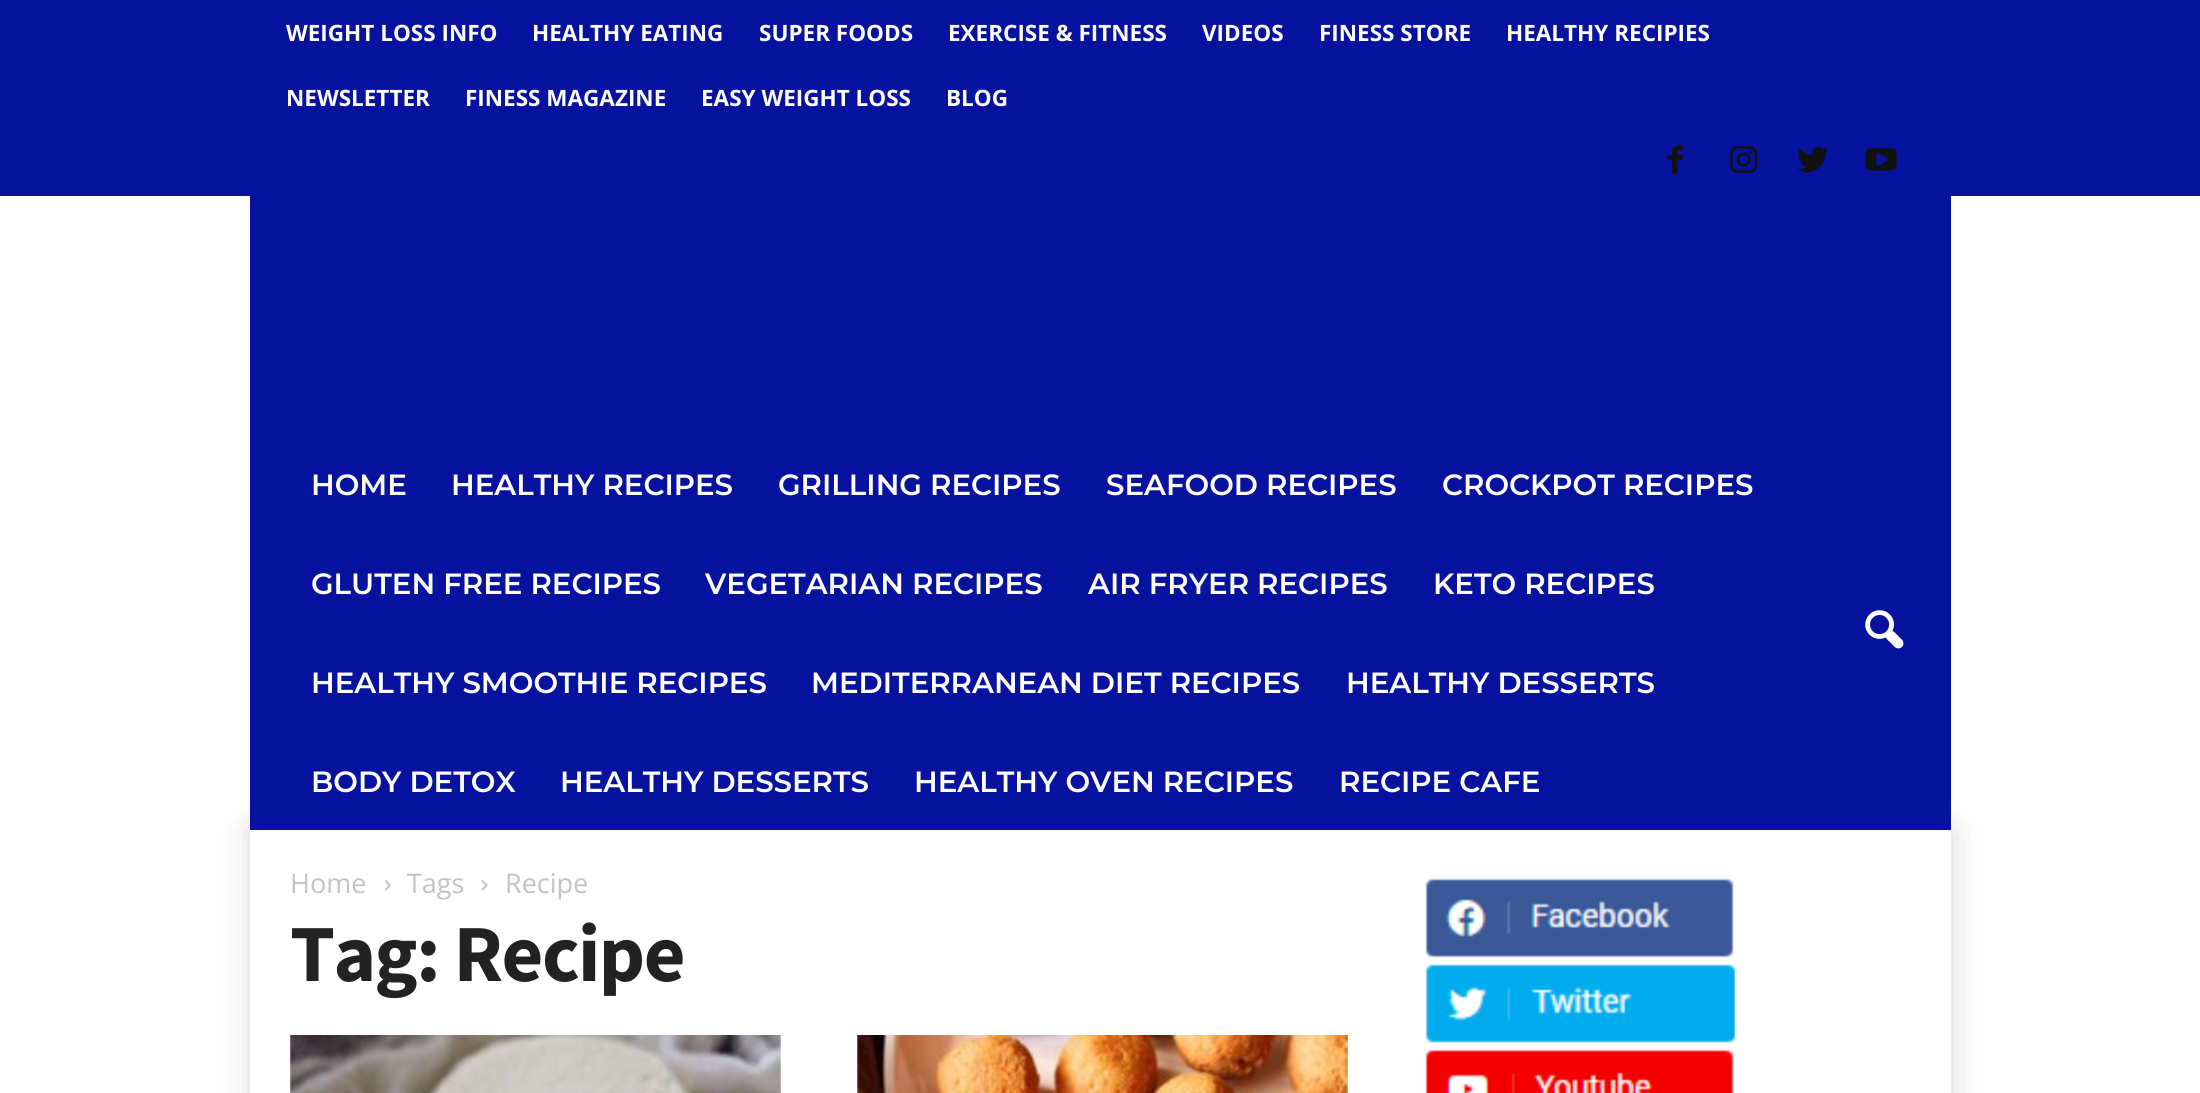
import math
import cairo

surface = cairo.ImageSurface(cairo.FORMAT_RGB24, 2200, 1093)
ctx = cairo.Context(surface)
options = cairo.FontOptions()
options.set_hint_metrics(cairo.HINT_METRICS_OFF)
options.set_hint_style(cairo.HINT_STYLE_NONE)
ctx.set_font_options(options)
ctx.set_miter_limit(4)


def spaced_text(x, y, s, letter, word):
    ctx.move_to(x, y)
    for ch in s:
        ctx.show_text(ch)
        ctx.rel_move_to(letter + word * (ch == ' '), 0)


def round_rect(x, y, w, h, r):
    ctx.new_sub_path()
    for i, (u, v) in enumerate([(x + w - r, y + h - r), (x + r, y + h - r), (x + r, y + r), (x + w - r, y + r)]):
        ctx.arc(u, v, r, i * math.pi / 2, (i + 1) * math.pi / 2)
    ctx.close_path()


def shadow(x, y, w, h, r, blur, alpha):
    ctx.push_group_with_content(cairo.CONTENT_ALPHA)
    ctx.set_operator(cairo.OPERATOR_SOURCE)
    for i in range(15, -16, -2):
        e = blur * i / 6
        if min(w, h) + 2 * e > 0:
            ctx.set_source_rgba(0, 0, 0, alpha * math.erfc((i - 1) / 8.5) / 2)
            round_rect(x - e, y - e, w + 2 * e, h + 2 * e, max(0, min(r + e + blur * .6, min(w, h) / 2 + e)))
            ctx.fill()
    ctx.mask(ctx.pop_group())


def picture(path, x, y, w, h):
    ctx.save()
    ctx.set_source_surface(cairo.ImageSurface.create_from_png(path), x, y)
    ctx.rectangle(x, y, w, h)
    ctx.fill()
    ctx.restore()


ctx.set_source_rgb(1, 1, 1)
ctx.paint()
ctx.set_source_rgb(0.031, 0.078, 0.62)
ctx.rectangle(0, 0, 2200, 196)
ctx.fill()
ctx.select_font_face("Open Sans", cairo.FONT_SLANT_NORMAL, cairo.FONT_WEIGHT_BOLD)
ctx.set_font_size(22.5)
ctx.set_source_rgb(1, 1, 1)
ctx.move_to(286, 41)
ctx.show_text("WEIGHT LOSS INFO")
ctx.move_to(532, 41)
ctx.show_text("HEALTHY EATING")
ctx.move_to(759, 41)
ctx.show_text("SUPER FOODS")
ctx.move_to(948, 41)
ctx.show_text("EXERCISE & FITNESS")
ctx.move_to(1202, 41)
ctx.show_text("VIDEOS")
ctx.move_to(1319, 41)
ctx.show_text("FINESS STORE")
ctx.move_to(1506, 41)
ctx.show_text("HEALTHY RECIPIES")
ctx.move_to(286, 106)
ctx.show_text("NEWSLETTER")
ctx.move_to(465, 106)
ctx.show_text("FINESS MAGAZINE")
ctx.move_to(701, 106)
ctx.show_text("EASY WEIGHT LOSS")
ctx.move_to(946, 106)
ctx.show_text("BLOG")
picture("img1.png", 1667, 145, 16, 29)
picture("img2.png", 1730, 145, 28, 28)
picture("img3.png", 1797, 146, 32, 27)
picture("img4.png", 1865, 148, 32, 23)
ctx.set_source_rgb(0.031, 0.078, 0.62)
ctx.rectangle(250, 196, 1701, 238)
ctx.fill()
ctx.save()
ctx.set_fill_rule(cairo.FILL_RULE_EVEN_ODD)
ctx.new_path()
ctx.move_to(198, 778)
ctx.line_to(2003, 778)
ctx.line_to(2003, 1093)
ctx.line_to(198, 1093)
ctx.close_path()
ctx.move_to(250, 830)
ctx.line_to(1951, 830)
ctx.line_to(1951, 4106)
ctx.line_to(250, 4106)
ctx.close_path()
ctx.clip()
ctx.set_source_rgb(0, 0, 0)
shadow(250, 830, 1701, 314, 0, 17, 0.15)
ctx.restore()
ctx.rectangle(250, 434, 1701, 396)
ctx.fill()
ctx.select_font_face("Montserrat SemiBold")
ctx.set_font_size(29.25)
ctx.set_source_rgb(1, 1, 1)
ctx.move_to(311, 495)
ctx.show_text("HOME")
ctx.move_to(451, 495)
ctx.show_text("HEALTHY RECIPES")
ctx.move_to(778, 495)
ctx.show_text("GRILLING RECIPES")
ctx.move_to(1106, 495)
ctx.show_text("SEAFOOD RECIPES")
ctx.move_to(1442, 495)
ctx.show_text("CROCKPOT RECIPES")
ctx.move_to(311, 594)
ctx.show_text("GLUTEN FREE RECIPES")
ctx.move_to(705, 594)
ctx.show_text("VEGETARIAN RECIPES")
ctx.move_to(1088, 594)
ctx.show_text("AIR FRYER RECIPES")
ctx.move_to(1433, 594)
ctx.show_text("KETO RECIPES")
ctx.move_to(311, 693)
ctx.show_text("HEALTHY SMOOTHIE RECIPES")
ctx.move_to(811, 693)
ctx.show_text("MEDITERRANEAN DIET RECIPES")
ctx.move_to(1346, 693)
ctx.show_text("HEALTHY DESSERTS")
ctx.move_to(311, 792)
ctx.show_text("BODY DETOX")
ctx.move_to(560, 792)
ctx.show_text("HEALTHY DESSERTS")
ctx.move_to(914, 792)
ctx.show_text("HEALTHY OVEN RECIPES")
ctx.move_to(1339, 792)
ctx.show_text("RECIPE CAFE")
picture("img5.png", 1865, 610, 39, 39)
ctx.rectangle(251, 830, 1, 1)
ctx.fill()
ctx.rectangle(1384, 830, 2, 1)
ctx.fill()
ctx.select_font_face("Open Sans")
ctx.set_font_size(27)
ctx.set_source_rgb(0.765, 0.765, 0.765)
ctx.move_to(290, 893)
ctx.show_text("Home")
picture("img6.png", 384, 880, 7, 11)
ctx.move_to(407, 893)
ctx.show_text("Tags")
picture("img7.png", 481, 880, 7, 11)
ctx.move_to(505, 893)
ctx.show_text("Recipe")
ctx.select_font_face("Source Sans Pro", cairo.FONT_SLANT_NORMAL, cairo.FONT_WEIGHT_BOLD)
ctx.set_font_size(81)
ctx.set_source_rgb(0.133, 0.133, 0.133)
spaced_text(290, 981, "Tag: Recipe", -1.6, 0)
picture("img8.png", 290, 1035, 491, 58)
picture("img9.png", 857, 1035, 491, 58)
picture("img10.png", 1425, 878, 309, 80)
picture("img11.png", 1425, 964, 310, 79)
picture("img12.png", 1425, 1049, 309, 44)
ctx.set_source_rgb(1, 1, 1)
ctx.rectangle(1949, 830, 2, 263)
ctx.fill()
surface.write_to_png("page.png")
